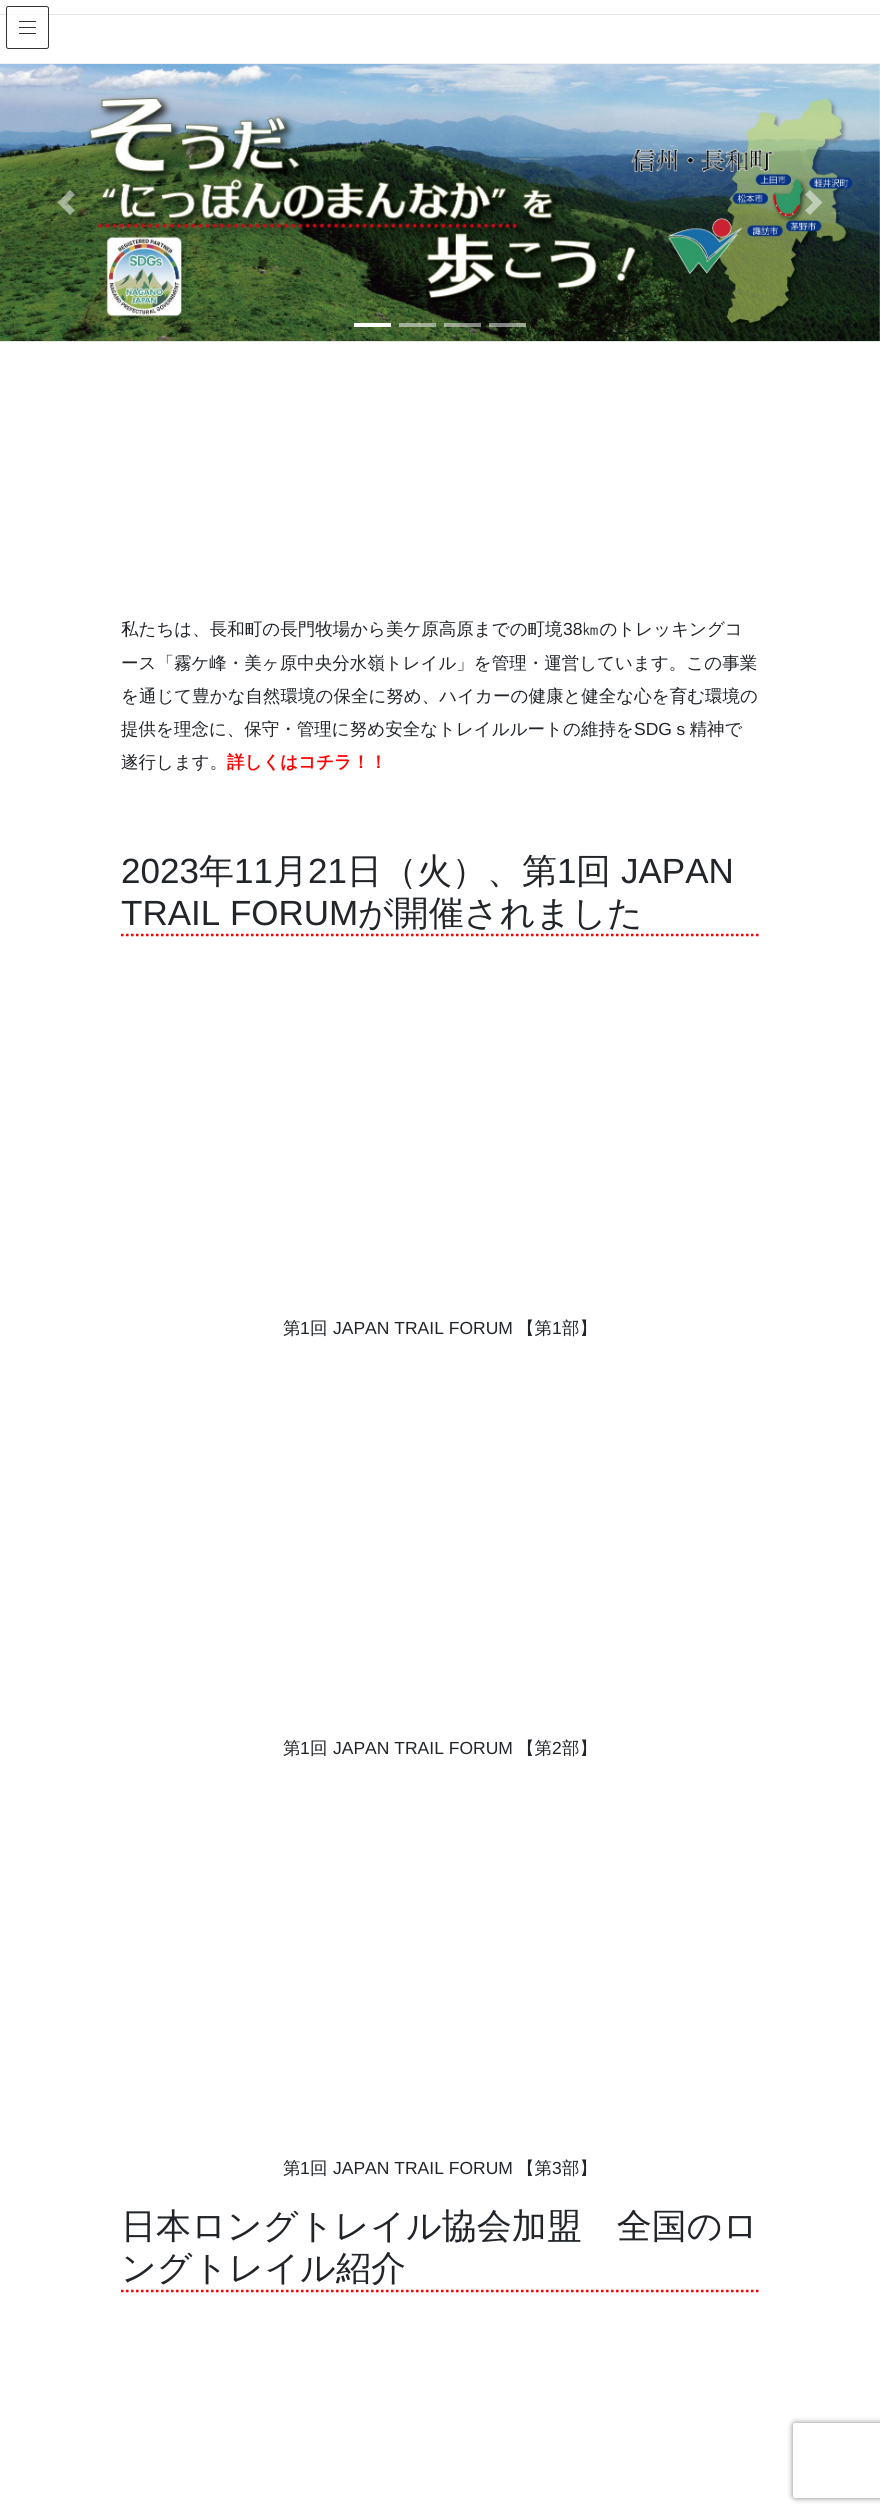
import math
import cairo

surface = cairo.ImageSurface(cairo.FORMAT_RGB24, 880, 2515)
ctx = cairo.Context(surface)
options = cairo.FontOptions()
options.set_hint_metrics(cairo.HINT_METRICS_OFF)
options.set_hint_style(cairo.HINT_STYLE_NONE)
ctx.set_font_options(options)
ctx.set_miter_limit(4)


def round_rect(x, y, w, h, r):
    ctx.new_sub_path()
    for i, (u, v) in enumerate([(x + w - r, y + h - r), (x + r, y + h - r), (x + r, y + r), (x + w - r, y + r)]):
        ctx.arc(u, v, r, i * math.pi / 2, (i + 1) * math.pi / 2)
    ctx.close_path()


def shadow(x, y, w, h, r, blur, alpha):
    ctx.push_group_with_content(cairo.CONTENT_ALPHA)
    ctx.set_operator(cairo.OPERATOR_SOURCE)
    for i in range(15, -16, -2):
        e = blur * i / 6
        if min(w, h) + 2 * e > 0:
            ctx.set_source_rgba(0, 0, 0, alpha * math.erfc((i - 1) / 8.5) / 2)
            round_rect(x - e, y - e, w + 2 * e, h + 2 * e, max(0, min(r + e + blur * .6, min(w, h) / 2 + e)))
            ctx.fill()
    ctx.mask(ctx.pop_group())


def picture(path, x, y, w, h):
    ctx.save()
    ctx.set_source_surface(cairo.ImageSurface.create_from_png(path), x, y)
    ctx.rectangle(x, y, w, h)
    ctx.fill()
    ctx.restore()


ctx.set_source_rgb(1, 1, 1)
ctx.paint()
ctx.set_source_rgb(0, 0, 0)
shadow(0, 1, 880, 64, 0, 2, 0.1)
ctx.set_source_rgb(1, 1, 1)
ctx.rectangle(0, 0, 880, 63)
ctx.fill()
ctx.set_source_rgb(0.949, 0.949, 0.949)
ctx.rectangle(0, 63, 880, 1)
ctx.fill()
ctx.set_source_rgb(0.898, 0.898, 0.898)
ctx.rectangle(0, 14, 880, 1)
ctx.fill()
ctx.set_source_rgba(1, 1, 1, 0.8)
round_rect(6, 6, 43, 43, 2.5)
ctx.fill()
ctx.set_source_rgb(0.2, 0.2, 0.2)
ctx.rectangle(19, 21, 17, 1)
ctx.fill()
ctx.rectangle(19, 27, 17, 1)
ctx.fill()
ctx.rectangle(19, 33, 17, 1)
ctx.fill()
round_rect(6.5, 6.5, 42, 42, 2)
ctx.set_line_width(1)
ctx.stroke()
ctx.set_source_rgb(0.898, 0.898, 0.898)
ctx.rectangle(0, 341, 880, 1)
ctx.fill()
picture("img1.png", 0, 64, 880, 277)
ctx.set_source_rgba(1, 1, 1, 0.5)
ctx.new_path()
ctx.move_to(70, 190)
ctx.line_to(57.5, 202.5)
ctx.line_to(70, 215)
ctx.line_to(75, 210.5)
ctx.line_to(67, 202.5)
ctx.line_to(75, 194.5)
ctx.close_path()
ctx.fill()
ctx.new_path()
ctx.move_to(810, 190)
ctx.line_to(805, 194.5)
ctx.line_to(813, 202.5)
ctx.line_to(805, 210.5)
ctx.line_to(810, 215)
ctx.line_to(822.5, 202.5)
ctx.close_path()
ctx.fill()
ctx.set_source_rgb(1, 1, 1)
ctx.rectangle(354, 323, 37, 4)
ctx.fill()
ctx.set_source_rgba(1, 1, 1, 0.5)
ctx.rectangle(399, 323, 37, 4)
ctx.fill()
ctx.rectangle(444, 323, 37, 4)
ctx.fill()
ctx.rectangle(489, 323, 37, 4)
ctx.fill()
ctx.select_font_face("WenQuanYi Zen Hei Medium")
ctx.set_font_size(17.5)
ctx.set_source_rgb(0.129, 0.145, 0.161)
ctx.move_to(121, 635)
ctx.show_text("私たちは、長和町の長門牧場から美ケ原高原までの町境")
ctx.select_font_face("Liberation Sans")
ctx.move_to(563, 635)
ctx.show_text("38")
ctx.select_font_face("WenQuanYi Zen Hei Medium")
ctx.move_to(582, 635)
ctx.show_text("㎞のトレッキングコ")
ctx.move_to(121, 669)
ctx.show_text("ース「霧ケ峰・美ヶ原中央分水嶺トレイル」を管理・運営しています。この事業")
ctx.move_to(121, 702)
ctx.show_text("を通じて豊かな自然環境の保全に努め、ハイカーの健康と健全な心を育む環境の")
ctx.move_to(121, 735)
ctx.show_text("提供を理念に、保守・管理に努め安全なトレイルルートの維持を")
ctx.select_font_face("Liberation Sans")
ctx.move_to(634, 735)
ctx.show_text("SDG")
ctx.select_font_face("WenQuanYi Zen Hei Medium")
ctx.move_to(672, 735)
ctx.show_text("ｓ精神で")
ctx.move_to(121, 768)
ctx.show_text("遂行します。")
ctx.select_font_face("WenQuanYi Zen Hei", cairo.FONT_SLANT_NORMAL, cairo.FONT_WEIGHT_BOLD)
ctx.set_source_rgb(1, 0, 0)
ctx.move_to(227, 768)
ctx.show_text("詳しくはコチラ！！")
ctx.new_path()
ctx.move_to(121, 935)
ctx.line_to(759, 935)
ctx.set_line_width(2.5)
ctx.set_dash([2.5, 2.5])
ctx.stroke()
ctx.select_font_face("Liberation Sans")
ctx.set_font_size(35)
ctx.set_source_rgb(0.129, 0.145, 0.161)
ctx.move_to(121, 883)
ctx.show_text("2023")
ctx.select_font_face("WenQuanYi Zen Hei Medium")
ctx.move_to(199, 883)
ctx.show_text("年")
ctx.select_font_face("Liberation Sans")
ctx.move_to(234, 883)
ctx.show_text("11")
ctx.select_font_face("WenQuanYi Zen Hei Medium")
ctx.move_to(273, 883)
ctx.show_text("月")
ctx.select_font_face("Liberation Sans")
ctx.move_to(308, 883)
ctx.show_text("21")
ctx.select_font_face("WenQuanYi Zen Hei Medium")
ctx.move_to(347, 883)
ctx.show_text("日（火）、第")
ctx.select_font_face("Liberation Sans")
ctx.move_to(557, 883)
ctx.show_text("1")
ctx.select_font_face("WenQuanYi Zen Hei Medium")
ctx.move_to(576, 883)
ctx.show_text("回")
ctx.select_font_face("Liberation Sans")
ctx.move_to(621, 883)
ctx.show_text("JAPAN")
ctx.move_to(121, 925)
ctx.show_text("TRAIL FORUM")
ctx.select_font_face("WenQuanYi Zen Hei Medium")
ctx.move_to(358, 925)
ctx.show_text("が開催されました")
ctx.set_font_size(17.5)
ctx.move_to(283, 1334)
ctx.show_text("第")
ctx.select_font_face("Liberation Sans")
ctx.move_to(300, 1334)
ctx.show_text("1")
ctx.select_font_face("WenQuanYi Zen Hei Medium")
ctx.move_to(310, 1334)
ctx.show_text("回")
ctx.select_font_face("Liberation Sans")
ctx.move_to(333, 1334)
ctx.show_text("JAPAN TRAIL FORUM")
ctx.select_font_face("WenQuanYi Zen Hei Medium")
ctx.move_to(517, 1334)
ctx.show_text("【第")
ctx.select_font_face("Liberation Sans")
ctx.move_to(552, 1334)
ctx.show_text("1")
ctx.select_font_face("WenQuanYi Zen Hei Medium")
ctx.move_to(562, 1334)
ctx.show_text("部】")
ctx.move_to(283, 1754)
ctx.show_text("第")
ctx.select_font_face("Liberation Sans")
ctx.move_to(300, 1754)
ctx.show_text("1")
ctx.select_font_face("WenQuanYi Zen Hei Medium")
ctx.move_to(310, 1754)
ctx.show_text("回")
ctx.select_font_face("Liberation Sans")
ctx.move_to(333, 1754)
ctx.show_text("JAPAN TRAIL FORUM")
ctx.select_font_face("WenQuanYi Zen Hei Medium")
ctx.move_to(517, 1754)
ctx.show_text("【第")
ctx.select_font_face("Liberation Sans")
ctx.move_to(552, 1754)
ctx.show_text("2")
ctx.select_font_face("WenQuanYi Zen Hei Medium")
ctx.move_to(562, 1754)
ctx.show_text("部】")
ctx.move_to(283, 2174)
ctx.show_text("第")
ctx.select_font_face("Liberation Sans")
ctx.move_to(300, 2174)
ctx.show_text("1")
ctx.select_font_face("WenQuanYi Zen Hei Medium")
ctx.move_to(310, 2174)
ctx.show_text("回")
ctx.select_font_face("Liberation Sans")
ctx.move_to(333, 2174)
ctx.show_text("JAPAN TRAIL FORUM")
ctx.select_font_face("WenQuanYi Zen Hei Medium")
ctx.move_to(517, 2174)
ctx.show_text("【第")
ctx.select_font_face("Liberation Sans")
ctx.move_to(552, 2174)
ctx.show_text("3")
ctx.select_font_face("WenQuanYi Zen Hei Medium")
ctx.move_to(562, 2174)
ctx.show_text("部】")
ctx.new_path()
ctx.move_to(121, 2291)
ctx.line_to(759, 2291)
ctx.set_source_rgb(1, 0, 0)
ctx.stroke()
ctx.set_font_size(35)
ctx.set_source_rgb(0.129, 0.145, 0.161)
ctx.move_to(121, 2238)
ctx.show_text("日本ロングトレイル協会加盟　全国のロ")
ctx.move_to(121, 2280)
ctx.show_text("ングトレイル紹介")
ctx.save()
ctx.set_fill_rule(cairo.FILL_RULE_EVEN_ODD)
ctx.new_path()
ctx.move_to(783, 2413)
ctx.line_to(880, 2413)
ctx.line_to(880, 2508)
ctx.line_to(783, 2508)
ctx.close_path()
ctx.move_to(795.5, 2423)
ctx.line_to(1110.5, 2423)
ctx.curve_to(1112, 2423, 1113, 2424, 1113, 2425.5)
ctx.line_to(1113, 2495.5)
ctx.curve_to(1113, 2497, 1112, 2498, 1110.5, 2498)
ctx.line_to(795.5, 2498)
ctx.curve_to(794, 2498, 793, 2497, 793, 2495.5)
ctx.line_to(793, 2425.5)
ctx.curve_to(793, 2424, 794, 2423, 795.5, 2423)
ctx.close_path()
ctx.clip()
ctx.set_source_rgb(0.502, 0.502, 0.502)
shadow(793, 2423, 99, 75, 2.5, 3, 1)
ctx.restore()
surface.write_to_png("page.png")
